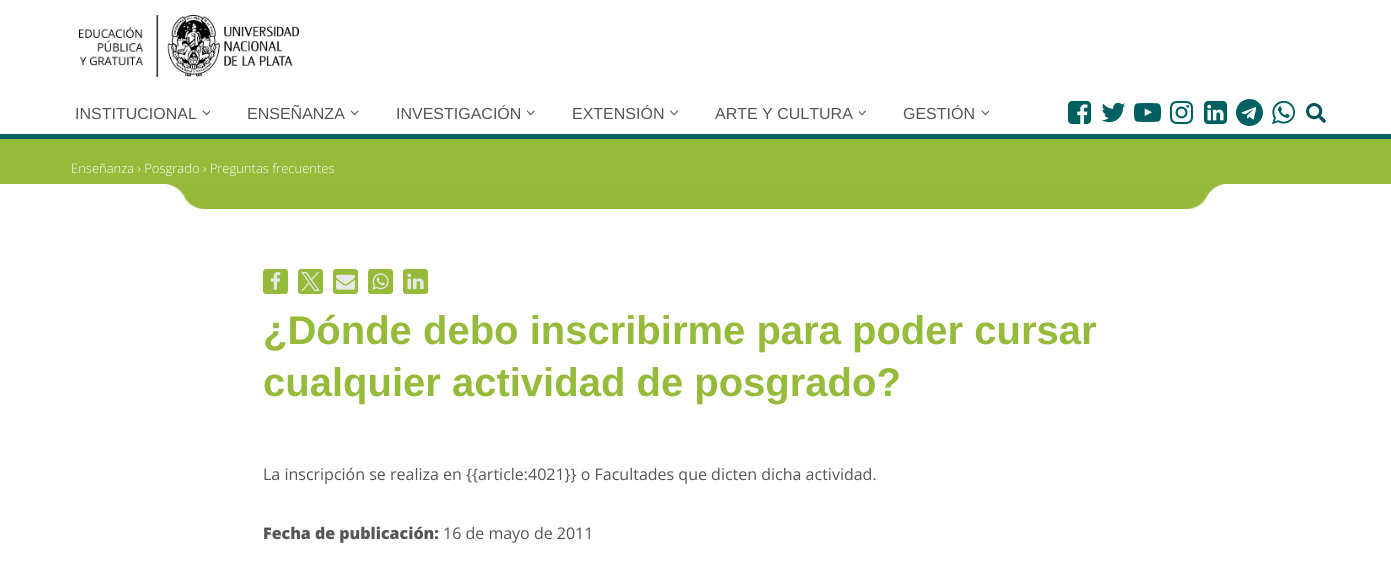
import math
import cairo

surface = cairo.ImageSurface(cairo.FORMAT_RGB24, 1391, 582)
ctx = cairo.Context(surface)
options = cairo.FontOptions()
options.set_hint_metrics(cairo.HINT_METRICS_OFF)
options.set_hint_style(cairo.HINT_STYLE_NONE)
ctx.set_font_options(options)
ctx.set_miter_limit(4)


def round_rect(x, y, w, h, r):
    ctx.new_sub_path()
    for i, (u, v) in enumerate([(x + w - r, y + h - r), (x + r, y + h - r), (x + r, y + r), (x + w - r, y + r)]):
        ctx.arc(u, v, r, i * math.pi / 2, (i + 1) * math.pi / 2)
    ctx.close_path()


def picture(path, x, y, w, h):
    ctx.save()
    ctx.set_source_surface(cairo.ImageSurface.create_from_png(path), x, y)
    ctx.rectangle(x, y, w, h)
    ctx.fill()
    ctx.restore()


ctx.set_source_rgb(1, 1, 1)
ctx.paint()
picture("img1.png", 79, 15, 220, 62)
ctx.select_font_face("Liberation Sans")
ctx.set_font_size(16)
ctx.set_source_rgb(0.333, 0.333, 0.333)
ctx.move_to(75, 119)
ctx.show_text("INSTITUCIONAL")
picture("img2.png", 202, 110, 8, 6)
ctx.move_to(247, 119)
ctx.show_text("ENSEÑANZA")
picture("img3.png", 351, 110, 8, 6)
ctx.move_to(396, 119)
ctx.show_text("INVESTIGACIÓN")
picture("img4.png", 527, 110, 8, 6)
ctx.move_to(572, 119)
ctx.show_text("EXTENSIÓN")
picture("img5.png", 670, 110, 8, 6)
ctx.move_to(715, 119)
ctx.show_text("ARTE Y CULTURA")
picture("img6.png", 859, 110, 7, 6)
ctx.move_to(903, 119)
ctx.show_text("GESTIÓN")
picture("img7.png", 981, 110, 8, 6)
picture("img8.png", 1067, 100, 25, 25)
picture("img9.png", 1101, 102, 25, 21)
picture("img10.png", 1134, 103, 27, 19)
picture("img11.png", 1169, 100, 25, 25)
picture("img12.png", 1203, 100, 25, 25)
picture("img13.png", 1236, 99, 27, 27)
picture("img14.png", 1272, 100, 24, 25)
picture("img15.png", 1306, 103, 20, 20)
ctx.set_source_rgb(0.588, 0.729, 0.227)
ctx.rectangle(0, 139, 1391, 45)
ctx.fill()
ctx.set_source_rgb(0, 0.373, 0.38)
ctx.rectangle(0, 134, 1391, 5)
ctx.fill()
ctx.select_font_face("Open Sans Light")
ctx.set_font_size(13)
ctx.set_source_rgb(1, 1, 1)
ctx.move_to(71, 173)
ctx.show_text("Enseñanza › Posgrado › Preguntas frecuentes")
picture("img16.png", 166, 184, 1060, 25)
ctx.set_source_rgb(0.588, 0.729, 0.227)
round_rect(263, 269, 25, 25, 3)
ctx.fill()
picture("img17.png", 271, 272, 10, 18)
round_rect(298, 269, 25, 25, 3)
ctx.fill()
picture("img18.png", 301, 272, 19, 19)
round_rect(333, 269, 25, 25, 3)
ctx.fill()
picture("img19.png", 336, 274, 19, 16)
round_rect(368, 269, 25, 25, 3)
ctx.fill()
picture("img20.png", 372, 273, 17, 17)
round_rect(403, 269, 25, 25, 3)
ctx.fill()
picture("img21.png", 407, 273, 17, 17)
ctx.select_font_face("Liberation Sans", cairo.FONT_SLANT_NORMAL, cairo.FONT_WEIGHT_BOLD)
ctx.set_font_size(40)
ctx.move_to(263, 344)
ctx.show_text("¿Dónde debo inscribirme para poder cursar")
ctx.move_to(263, 396)
ctx.show_text("cualquier actividad de posgrado?")
ctx.select_font_face("Open Sans")
ctx.set_font_size(16)
ctx.set_source_rgb(0.333, 0.333, 0.333)
ctx.move_to(263, 480)
ctx.show_text("La inscripción se realiza en {{article:4021}} o Facultades que dicten dicha actividad.")
ctx.select_font_face("Open Sans ExtraBold")
ctx.move_to(263, 539)
ctx.show_text("Fecha de publicación:")
ctx.select_font_face("Open Sans")
ctx.move_to(443, 539)
ctx.show_text("16 de mayo de 2011")
surface.write_to_png("page.png")
